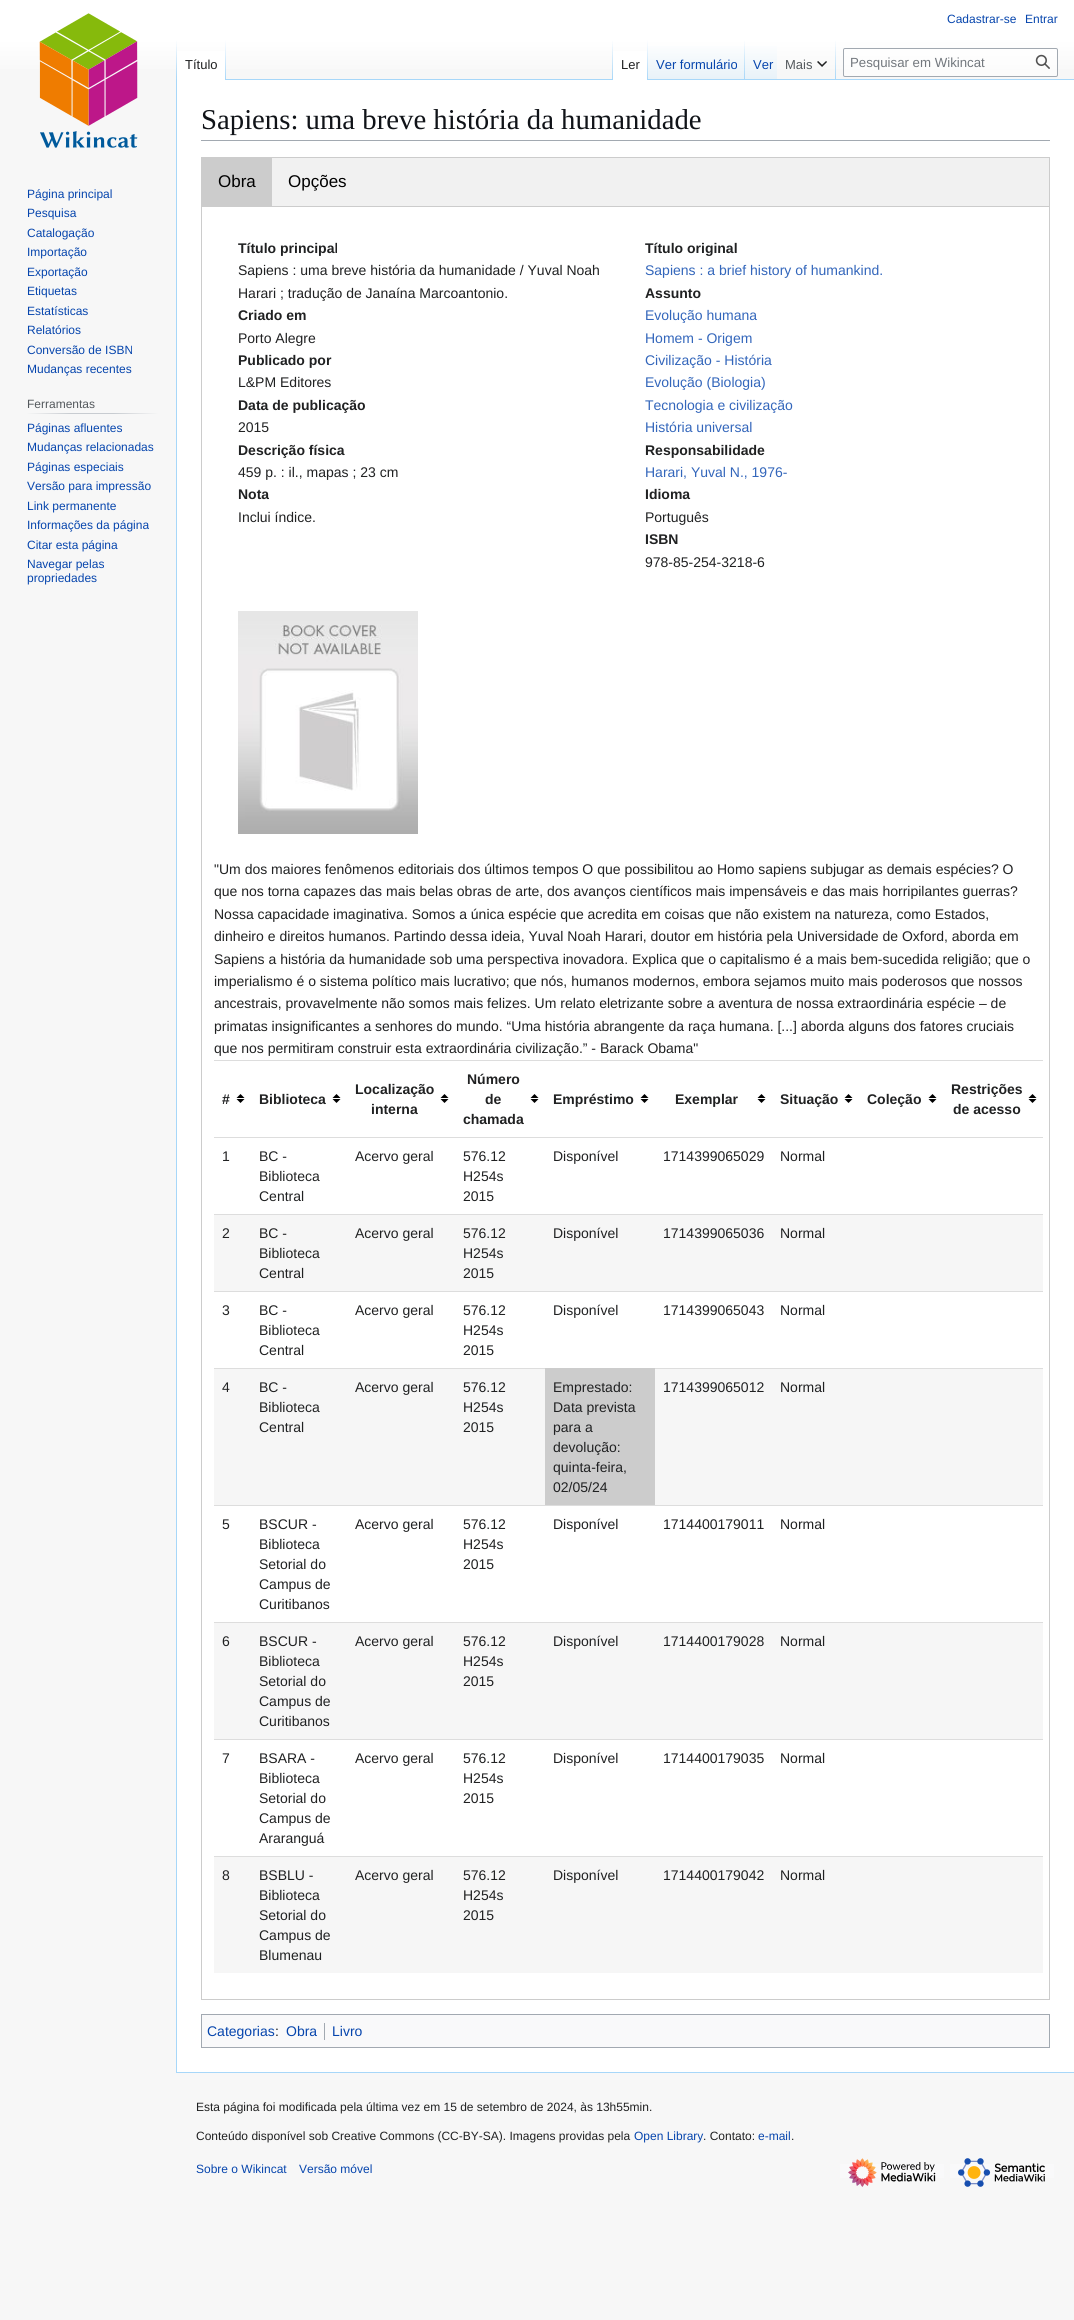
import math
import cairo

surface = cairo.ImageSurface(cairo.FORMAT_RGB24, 1074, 2320)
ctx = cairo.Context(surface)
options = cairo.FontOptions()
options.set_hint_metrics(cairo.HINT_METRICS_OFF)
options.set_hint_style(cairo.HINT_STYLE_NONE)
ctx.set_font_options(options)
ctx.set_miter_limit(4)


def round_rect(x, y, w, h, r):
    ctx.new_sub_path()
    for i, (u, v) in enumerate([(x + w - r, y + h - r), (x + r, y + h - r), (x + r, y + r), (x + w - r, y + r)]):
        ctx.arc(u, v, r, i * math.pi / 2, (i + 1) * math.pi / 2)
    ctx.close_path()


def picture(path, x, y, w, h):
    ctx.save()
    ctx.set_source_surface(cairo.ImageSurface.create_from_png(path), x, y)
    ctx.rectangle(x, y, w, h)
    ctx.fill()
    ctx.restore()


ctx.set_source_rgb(0.965, 0.965, 0.965)
ctx.paint()
gradient = cairo.LinearGradient(537, 0, 537, 80)
gradient.add_color_stop_rgba(0.5, 1, 1, 1, 1)
gradient.add_color_stop_rgba(1, 0.965, 0.965, 0.965, 1)
ctx.set_source(gradient)
ctx.rectangle(0, 0, 1074, 69)
ctx.fill()
ctx.select_font_face("Liberation Sans")
ctx.set_font_size(12)
ctx.set_source_rgb(0.024, 0.271, 0.678)
ctx.move_to(947, 23)
ctx.show_text("Cadastrar-se")
ctx.move_to(1025, 23)
ctx.show_text("Entrar")
ctx.set_source_rgb(0.655, 0.843, 0.976)
ctx.rectangle(176, 2072, 898, 1)
ctx.fill()
ctx.rectangle(176, 79, 1, 1994)
ctx.fill()
gradient = cairo.LinearGradient(177, 40, 177, 80)
gradient.add_color_stop_rgba(0, 0.655, 0.843, 0.976, 0)
gradient.add_color_stop_rgba(1, 0.655, 0.843, 0.976, 1)
ctx.set_source(gradient)
ctx.rectangle(176, 40, 1, 40)
ctx.fill()
ctx.set_source_rgb(1, 1, 1)
ctx.rectangle(177, 51, 48, 29)
ctx.fill()
gradient = cairo.LinearGradient(226, 40, 226, 80)
gradient.add_color_stop_rgba(0, 1, 1, 1, 1)
gradient.add_color_stop_rgba(1, 0.655, 0.843, 0.976, 1)
ctx.set_source(gradient)
ctx.rectangle(225, 40, 1, 40)
ctx.fill()
ctx.set_font_size(13)
ctx.set_source_rgb(0.125, 0.129, 0.133)
ctx.move_to(185, 69)
ctx.show_text("Título")
ctx.set_source_rgb(0.655, 0.843, 0.976)
ctx.rectangle(226, 79, 848, 1)
ctx.fill()
gradient = cairo.LinearGradient(613, 40, 613, 80)
gradient.add_color_stop_rgba(0, 0.655, 0.843, 0.976, 0)
gradient.add_color_stop_rgba(1, 0.655, 0.843, 0.976, 1)
ctx.set_source(gradient)
ctx.rectangle(612, 40, 1, 40)
ctx.fill()
ctx.set_source_rgb(1, 1, 1)
ctx.rectangle(613, 51, 34, 29)
ctx.fill()
gradient = cairo.LinearGradient(648, 40, 648, 80)
gradient.add_color_stop_rgba(0, 1, 1, 1, 1)
gradient.add_color_stop_rgba(1, 0.655, 0.843, 0.976, 1)
ctx.set_source(gradient)
ctx.rectangle(647, 40, 1, 40)
ctx.fill()
ctx.set_source_rgb(0.125, 0.129, 0.133)
ctx.move_to(621, 69)
ctx.show_text("Ler")
gradient = cairo.LinearGradient(697, 80, 697, 40)
gradient.add_color_stop_rgba(0, 0.467, 0.757, 0.965, 1)
gradient.add_color_stop_rgba(0.03, 0.91, 0.949, 0.973, 1)
gradient.add_color_stop_rgba(1, 1, 1, 1, 1)
ctx.set_source(gradient)
ctx.rectangle(648, 46, 97, 33)
ctx.fill()
gradient = cairo.LinearGradient(745, 40, 745, 80)
gradient.add_color_stop_rgba(0, 0.655, 0.843, 0.976, 0)
gradient.add_color_stop_rgba(1, 0.655, 0.843, 0.976, 1)
ctx.set_source(gradient)
ctx.rectangle(744, 40, 1, 40)
ctx.fill()
ctx.set_source_rgb(0.024, 0.271, 0.678)
ctx.move_to(656, 69)
ctx.show_text("Ver formulário")
gradient = cairo.LinearGradient(761, 80, 761, 40)
gradient.add_color_stop_rgba(0, 0.467, 0.757, 0.965, 1)
gradient.add_color_stop_rgba(0.03, 0.91, 0.949, 0.973, 1)
gradient.add_color_stop_rgba(1, 1, 1, 1, 1)
ctx.set_source(gradient)
ctx.rectangle(745, 46, 32, 33)
ctx.fill()
ctx.set_source_rgb(0.024, 0.271, 0.678)
ctx.move_to(753, 69)
ctx.show_text("Ver")
gradient = cairo.LinearGradient(836, 40, 836, 80)
gradient.add_color_stop_rgba(0, 0.655, 0.843, 0.976, 0)
gradient.add_color_stop_rgba(1, 0.655, 0.843, 0.976, 1)
ctx.set_source(gradient)
ctx.rectangle(835, 40, 1, 40)
ctx.fill()
ctx.set_source_rgb(0.329, 0.349, 0.365)
ctx.move_to(785, 69)
ctx.show_text("Mais")
picture("img1.png", 817, 61, 10, 6)
ctx.set_source_rgba(1, 1, 1, 0.5)
round_rect(843.5, 48.5, 214, 28, 1.5)
ctx.fill_preserve()
ctx.set_source_rgb(0.635, 0.663, 0.694)
ctx.set_line_width(1)
ctx.stroke()
ctx.set_font_size(13.25)
ctx.set_source_rgb(0.447, 0.467, 0.49)
ctx.move_to(850, 67)
ctx.show_text("Pesquisar em Wikincat")
picture("img2.png", 1035, 54, 15, 15)
picture("img3.png", 39, 13, 99, 135)
ctx.set_font_size(12)
ctx.set_source_rgb(0.024, 0.271, 0.678)
ctx.move_to(27, 198)
ctx.show_text("Página principal")
ctx.move_to(27, 217)
ctx.show_text("Pesquisa")
ctx.move_to(27, 237)
ctx.show_text("Catalogação")
ctx.move_to(27, 256)
ctx.show_text("Importação")
ctx.move_to(27, 276)
ctx.show_text("Exportação")
ctx.move_to(27, 295)
ctx.show_text("Etiquetas")
ctx.move_to(27, 315)
ctx.show_text("Estatísticas")
ctx.move_to(27, 334)
ctx.show_text("Relatórios")
ctx.move_to(27, 354)
ctx.show_text("Conversão de ISBN")
ctx.move_to(27, 373)
ctx.show_text("Mudanças recentes")
gradient = cairo.LinearGradient(27, 414, 158, 414)
gradient.add_color_stop_rgba(0, 0.965, 0.965, 0.965, 1)
gradient.add_color_stop_rgba(0.33, 0.784, 0.8, 0.82, 1)
gradient.add_color_stop_rgba(0.66, 0.784, 0.8, 0.82, 1)
gradient.add_color_stop_rgba(1, 0.965, 0.965, 0.965, 1)
ctx.set_source(gradient)
ctx.rectangle(27, 413, 131, 1)
ctx.fill()
ctx.set_source_rgb(0.329, 0.349, 0.365)
ctx.move_to(27, 408)
ctx.show_text("Ferramentas")
ctx.set_source_rgb(0.024, 0.271, 0.678)
ctx.move_to(27, 432)
ctx.show_text("Páginas afluentes")
ctx.move_to(27, 451)
ctx.show_text("Mudanças relacionadas")
ctx.move_to(27, 471)
ctx.show_text("Páginas especiais")
ctx.move_to(27, 490)
ctx.show_text("Versão para impressão")
ctx.move_to(27, 510)
ctx.show_text("Link permanente")
ctx.move_to(27, 529)
ctx.show_text("Informações da página")
ctx.move_to(27, 549)
ctx.show_text("Citar esta página")
ctx.move_to(27, 568)
ctx.show_text("Navegar pelas")
ctx.move_to(27, 582)
ctx.show_text("propriedades")
ctx.set_source_rgb(1, 1, 1)
ctx.rectangle(177, 80, 897, 1992)
ctx.fill()
ctx.set_source_rgb(0.635, 0.663, 0.694)
ctx.rectangle(201, 140, 849, 1)
ctx.fill()
ctx.select_font_face("Liberation Serif")
ctx.set_font_size(28.75)
ctx.set_source_rgb(0.063, 0.078, 0.094)
ctx.move_to(201, 129)
ctx.show_text("Sapiens: uma breve história da humanidade")
ctx.set_source_rgb(0.945, 0.945, 0.945)
ctx.rectangle(272, 158, 777, 48)
ctx.fill()
ctx.rectangle(201.5, 157.5, 848, 49)
ctx.set_source_rgb(0.8, 0.8, 0.8)
ctx.stroke()
ctx.rectangle(202, 158, 70, 48)
ctx.fill()
ctx.select_font_face("Liberation Sans")
ctx.set_font_size(17)
ctx.set_source_rgb(0, 0, 0)
ctx.move_to(218, 187)
ctx.show_text("Obra")
ctx.move_to(288, 187)
ctx.show_text("Opções")
ctx.set_source_rgb(0.8, 0.8, 0.8)
ctx.rectangle(1049, 207, 1, 1793)
ctx.fill()
ctx.rectangle(201, 1999, 849, 1)
ctx.fill()
ctx.rectangle(201, 207, 1, 1793)
ctx.fill()
ctx.select_font_face("Liberation Sans", cairo.FONT_SLANT_NORMAL, cairo.FONT_WEIGHT_BOLD)
ctx.set_font_size(14)
ctx.set_source_rgb(0.125, 0.129, 0.133)
ctx.move_to(238, 253)
ctx.show_text("Título principal")
ctx.select_font_face("Liberation Sans")
ctx.move_to(238, 275)
ctx.show_text("Sapiens : uma breve história da humanidade / Yuval Noah")
ctx.move_to(238, 298)
ctx.show_text("Harari ; tradução de Janaína Marcoantonio.")
ctx.select_font_face("Liberation Sans", cairo.FONT_SLANT_NORMAL, cairo.FONT_WEIGHT_BOLD)
ctx.move_to(238, 320)
ctx.show_text("Criado em")
ctx.select_font_face("Liberation Sans")
ctx.move_to(238, 343)
ctx.show_text("Porto Alegre")
ctx.select_font_face("Liberation Sans", cairo.FONT_SLANT_NORMAL, cairo.FONT_WEIGHT_BOLD)
ctx.move_to(238, 365)
ctx.show_text("Publicado por")
ctx.select_font_face("Liberation Sans")
ctx.move_to(238, 387)
ctx.show_text("L&PM Editores")
ctx.select_font_face("Liberation Sans", cairo.FONT_SLANT_NORMAL, cairo.FONT_WEIGHT_BOLD)
ctx.move_to(238, 410)
ctx.show_text("Data de publicação")
ctx.select_font_face("Liberation Sans")
ctx.move_to(238, 432)
ctx.show_text("2015")
ctx.select_font_face("Liberation Sans", cairo.FONT_SLANT_NORMAL, cairo.FONT_WEIGHT_BOLD)
ctx.move_to(238, 455)
ctx.show_text("Descrição física")
ctx.select_font_face("Liberation Sans")
ctx.move_to(238, 477)
ctx.show_text("459 p. : il., mapas ; 23 cm")
ctx.select_font_face("Liberation Sans", cairo.FONT_SLANT_NORMAL, cairo.FONT_WEIGHT_BOLD)
ctx.move_to(238, 499)
ctx.show_text("Nota")
ctx.select_font_face("Liberation Sans")
ctx.move_to(238, 522)
ctx.show_text("Inclui índice.")
ctx.select_font_face("Liberation Sans", cairo.FONT_SLANT_NORMAL, cairo.FONT_WEIGHT_BOLD)
ctx.move_to(645, 253)
ctx.show_text("Título original")
ctx.select_font_face("Liberation Sans")
ctx.set_source_rgb(0.2, 0.4, 0.733)
ctx.move_to(645, 275)
ctx.show_text("Sapiens : a brief history of humankind.")
ctx.select_font_face("Liberation Sans", cairo.FONT_SLANT_NORMAL, cairo.FONT_WEIGHT_BOLD)
ctx.set_source_rgb(0.125, 0.129, 0.133)
ctx.move_to(645, 298)
ctx.show_text("Assunto")
ctx.select_font_face("Liberation Sans")
ctx.set_source_rgb(0.2, 0.4, 0.733)
ctx.move_to(645, 320)
ctx.show_text("Evolução humana")
ctx.move_to(645, 343)
ctx.show_text("Homem - Origem")
ctx.move_to(645, 365)
ctx.show_text("Civilização - História")
ctx.move_to(645, 387)
ctx.show_text("Evolução (Biologia)")
ctx.move_to(645, 410)
ctx.show_text("Tecnologia e civilização")
ctx.move_to(645, 432)
ctx.show_text("História universal")
ctx.select_font_face("Liberation Sans", cairo.FONT_SLANT_NORMAL, cairo.FONT_WEIGHT_BOLD)
ctx.set_source_rgb(0.125, 0.129, 0.133)
ctx.move_to(645, 455)
ctx.show_text("Responsabilidade")
ctx.select_font_face("Liberation Sans")
ctx.set_source_rgb(0.2, 0.4, 0.733)
ctx.move_to(645, 477)
ctx.show_text("Harari, Yuval N., 1976-")
ctx.select_font_face("Liberation Sans", cairo.FONT_SLANT_NORMAL, cairo.FONT_WEIGHT_BOLD)
ctx.set_source_rgb(0.125, 0.129, 0.133)
ctx.move_to(645, 499)
ctx.show_text("Idioma")
ctx.select_font_face("Liberation Sans")
ctx.move_to(645, 522)
ctx.show_text("Português")
ctx.select_font_face("Liberation Sans", cairo.FONT_SLANT_NORMAL, cairo.FONT_WEIGHT_BOLD)
ctx.move_to(645, 544)
ctx.show_text("ISBN")
ctx.select_font_face("Liberation Sans")
ctx.move_to(645, 567)
ctx.show_text("978-85-254-3218-6")
picture("img4.png", 238, 611, 180, 223)
ctx.move_to(214, 874)
ctx.show_text("\"Um dos maiores fenômenos editoriais dos últimos tempos O que possibilitou ao Homo sapiens subjugar as demais espécies? O")
ctx.move_to(214, 896)
ctx.show_text("que nos torna capazes das mais belas obras de arte, dos avanços científicos mais impensáveis e das mais horripilantes guerras?")
ctx.move_to(214, 919)
ctx.show_text("Nossa capacidade imaginativa. Somos a única espécie que acredita em coisas que não existem na natureza, como Estados,")
ctx.move_to(214, 941)
ctx.show_text("dinheiro e direitos humanos. Partindo dessa ideia, Yuval Noah Harari, doutor em história pela Universidade de Oxford, aborda em")
ctx.move_to(214, 964)
ctx.show_text("Sapiens a história da humanidade sob uma perspectiva inovadora. Explica que o capitalismo é a mais bem-sucedida religião; que o")
ctx.move_to(214, 986)
ctx.show_text("imperialismo é o sistema político mais lucrativo; que nós, humanos modernos, embora sejamos muito mais poderosos que nossos")
ctx.move_to(214, 1008)
ctx.show_text("ancestrais, provavelmente não somos mais felizes. Um relato eletrizante sobre a aventura de nossa extraordinária espécie – de")
ctx.move_to(214, 1031)
ctx.show_text("primatas insignificantes a senhores do mundo. “Uma história abrangente da raça humana. [...] aborda alguns dos fatores cruciais")
ctx.move_to(214, 1053)
ctx.show_text("que nos permitiram construir esta extraordinária civilização.” - Barack Obama\"")
ctx.set_source_rgb(0.867, 0.867, 0.867)
ctx.rectangle(214, 1060, 829, 1)
ctx.fill()
picture("img5.png", 236, 1094, 9, 9)
ctx.select_font_face("Liberation Sans", cairo.FONT_SLANT_NORMAL, cairo.FONT_WEIGHT_BOLD)
ctx.set_source_rgb(0.125, 0.129, 0.133)
ctx.move_to(222, 1104)
ctx.show_text("#")
picture("img5.png", 332, 1094, 9, 9)
ctx.move_to(259, 1104)
ctx.show_text("Biblioteca")
picture("img5.png", 440, 1094, 9, 9)
ctx.move_to(355, 1094)
ctx.show_text("Localização")
ctx.move_to(371, 1114)
ctx.show_text("interna")
picture("img5.png", 530, 1094, 9, 9)
ctx.move_to(467, 1084)
ctx.show_text("Número")
ctx.move_to(485, 1104)
ctx.show_text("de")
ctx.move_to(463, 1124)
ctx.show_text("chamada")
picture("img5.png", 640, 1094, 9, 9)
ctx.move_to(553, 1104)
ctx.show_text("Empréstimo")
picture("img5.png", 757, 1094, 9, 9)
ctx.move_to(675, 1104)
ctx.show_text("Exemplar")
picture("img5.png", 844, 1094, 9, 9)
ctx.move_to(780, 1104)
ctx.show_text("Situação")
picture("img5.png", 928, 1094, 9, 9)
ctx.move_to(867, 1104)
ctx.show_text("Coleção")
picture("img5.png", 1028, 1094, 9, 9)
ctx.move_to(951, 1094)
ctx.show_text("Restrições")
ctx.move_to(953, 1114)
ctx.show_text("de acesso")
ctx.set_source_rgb(0.867, 0.867, 0.867)
ctx.rectangle(214, 1137, 829, 1)
ctx.fill()
ctx.select_font_face("Liberation Sans")
ctx.set_source_rgb(0.125, 0.129, 0.133)
ctx.move_to(222, 1161)
ctx.show_text("1")
ctx.move_to(259, 1161)
ctx.show_text("BC -")
ctx.move_to(259, 1181)
ctx.show_text("Biblioteca")
ctx.move_to(259, 1201)
ctx.show_text("Central")
ctx.move_to(355, 1161)
ctx.show_text("Acervo geral")
ctx.move_to(463, 1161)
ctx.show_text("576.12")
ctx.move_to(463, 1181)
ctx.show_text("H254s")
ctx.move_to(463, 1201)
ctx.show_text("2015")
ctx.move_to(553, 1161)
ctx.show_text("Disponível")
ctx.move_to(663, 1161)
ctx.show_text("1714399065029")
ctx.move_to(780, 1161)
ctx.show_text("Normal")
ctx.set_source_rgb(0.961, 0.961, 0.961)
ctx.rectangle(214, 1215, 829, 76)
ctx.fill()
ctx.set_source_rgb(0.867, 0.867, 0.867)
ctx.rectangle(214, 1214, 829, 1)
ctx.fill()
ctx.set_source_rgb(0.125, 0.129, 0.133)
ctx.move_to(222, 1238)
ctx.show_text("2")
ctx.move_to(259, 1238)
ctx.show_text("BC -")
ctx.move_to(259, 1258)
ctx.show_text("Biblioteca")
ctx.move_to(259, 1278)
ctx.show_text("Central")
ctx.move_to(355, 1238)
ctx.show_text("Acervo geral")
ctx.move_to(463, 1238)
ctx.show_text("576.12")
ctx.move_to(463, 1258)
ctx.show_text("H254s")
ctx.move_to(463, 1278)
ctx.show_text("2015")
ctx.move_to(553, 1238)
ctx.show_text("Disponível")
ctx.move_to(663, 1238)
ctx.show_text("1714399065036")
ctx.move_to(780, 1238)
ctx.show_text("Normal")
ctx.set_source_rgb(0.867, 0.867, 0.867)
ctx.rectangle(214, 1291, 829, 1)
ctx.fill()
ctx.set_source_rgb(0.125, 0.129, 0.133)
ctx.move_to(222, 1315)
ctx.show_text("3")
ctx.move_to(259, 1315)
ctx.show_text("BC -")
ctx.move_to(259, 1335)
ctx.show_text("Biblioteca")
ctx.move_to(259, 1355)
ctx.show_text("Central")
ctx.move_to(355, 1315)
ctx.show_text("Acervo geral")
ctx.move_to(463, 1315)
ctx.show_text("576.12")
ctx.move_to(463, 1335)
ctx.show_text("H254s")
ctx.move_to(463, 1355)
ctx.show_text("2015")
ctx.move_to(553, 1315)
ctx.show_text("Disponível")
ctx.move_to(663, 1315)
ctx.show_text("1714399065043")
ctx.move_to(780, 1315)
ctx.show_text("Normal")
ctx.set_source_rgb(0.961, 0.961, 0.961)
ctx.rectangle(214, 1369, 829, 136)
ctx.fill()
ctx.set_source_rgb(0.867, 0.867, 0.867)
ctx.rectangle(214, 1368, 829, 1)
ctx.fill()
ctx.set_source_rgb(0.125, 0.129, 0.133)
ctx.move_to(222, 1392)
ctx.show_text("4")
ctx.move_to(259, 1392)
ctx.show_text("BC -")
ctx.move_to(259, 1412)
ctx.show_text("Biblioteca")
ctx.move_to(259, 1432)
ctx.show_text("Central")
ctx.move_to(355, 1392)
ctx.show_text("Acervo geral")
ctx.move_to(463, 1392)
ctx.show_text("576.12")
ctx.move_to(463, 1412)
ctx.show_text("H254s")
ctx.move_to(463, 1432)
ctx.show_text("2015")
ctx.set_source_rgb(0.8, 0.8, 0.8)
ctx.rectangle(545, 1368, 110, 137)
ctx.fill()
ctx.set_source_rgb(0.125, 0.129, 0.133)
ctx.move_to(553, 1392)
ctx.show_text("Emprestado:")
ctx.move_to(553, 1412)
ctx.show_text("Data prevista")
ctx.move_to(553, 1432)
ctx.show_text("para a")
ctx.move_to(553, 1452)
ctx.show_text("devolução:")
ctx.move_to(553, 1472)
ctx.show_text("quinta-feira,")
ctx.move_to(553, 1492)
ctx.show_text("02/05/24")
ctx.move_to(663, 1392)
ctx.show_text("1714399065012")
ctx.move_to(780, 1392)
ctx.show_text("Normal")
ctx.set_source_rgb(0.867, 0.867, 0.867)
ctx.rectangle(214, 1505, 829, 1)
ctx.fill()
ctx.set_source_rgb(0.125, 0.129, 0.133)
ctx.move_to(222, 1529)
ctx.show_text("5")
ctx.move_to(259, 1529)
ctx.show_text("BSCUR -")
ctx.move_to(259, 1549)
ctx.show_text("Biblioteca")
ctx.move_to(259, 1569)
ctx.show_text("Setorial do")
ctx.move_to(259, 1589)
ctx.show_text("Campus de")
ctx.move_to(259, 1609)
ctx.show_text("Curitibanos")
ctx.move_to(355, 1529)
ctx.show_text("Acervo geral")
ctx.move_to(463, 1529)
ctx.show_text("576.12")
ctx.move_to(463, 1549)
ctx.show_text("H254s")
ctx.move_to(463, 1569)
ctx.show_text("2015")
ctx.move_to(553, 1529)
ctx.show_text("Disponível")
ctx.move_to(663, 1529)
ctx.show_text("1714400179011")
ctx.move_to(780, 1529)
ctx.show_text("Normal")
ctx.set_source_rgb(0.961, 0.961, 0.961)
ctx.rectangle(214, 1623, 829, 116)
ctx.fill()
ctx.set_source_rgb(0.867, 0.867, 0.867)
ctx.rectangle(214, 1622, 829, 1)
ctx.fill()
ctx.set_source_rgb(0.125, 0.129, 0.133)
ctx.move_to(222, 1646)
ctx.show_text("6")
ctx.move_to(259, 1646)
ctx.show_text("BSCUR -")
ctx.move_to(259, 1666)
ctx.show_text("Biblioteca")
ctx.move_to(259, 1686)
ctx.show_text("Setorial do")
ctx.move_to(259, 1706)
ctx.show_text("Campus de")
ctx.move_to(259, 1726)
ctx.show_text("Curitibanos")
ctx.move_to(355, 1646)
ctx.show_text("Acervo geral")
ctx.move_to(463, 1646)
ctx.show_text("576.12")
ctx.move_to(463, 1666)
ctx.show_text("H254s")
ctx.move_to(463, 1686)
ctx.show_text("2015")
ctx.move_to(553, 1646)
ctx.show_text("Disponível")
ctx.move_to(663, 1646)
ctx.show_text("1714400179028")
ctx.move_to(780, 1646)
ctx.show_text("Normal")
ctx.set_source_rgb(0.867, 0.867, 0.867)
ctx.rectangle(214, 1739, 829, 1)
ctx.fill()
ctx.set_source_rgb(0.125, 0.129, 0.133)
ctx.move_to(222, 1763)
ctx.show_text("7")
ctx.move_to(259, 1763)
ctx.show_text("BSARA -")
ctx.move_to(259, 1783)
ctx.show_text("Biblioteca")
ctx.move_to(259, 1803)
ctx.show_text("Setorial do")
ctx.move_to(259, 1823)
ctx.show_text("Campus de")
ctx.move_to(259, 1843)
ctx.show_text("Araranguá")
ctx.move_to(355, 1763)
ctx.show_text("Acervo geral")
ctx.move_to(463, 1763)
ctx.show_text("576.12")
ctx.move_to(463, 1783)
ctx.show_text("H254s")
ctx.move_to(463, 1803)
ctx.show_text("2015")
ctx.move_to(553, 1763)
ctx.show_text("Disponível")
ctx.move_to(663, 1763)
ctx.show_text("1714400179035")
ctx.move_to(780, 1763)
ctx.show_text("Normal")
ctx.set_source_rgb(0.961, 0.961, 0.961)
ctx.rectangle(214, 1857, 829, 116)
ctx.fill()
ctx.set_source_rgb(0.867, 0.867, 0.867)
ctx.rectangle(214, 1856, 829, 1)
ctx.fill()
ctx.set_source_rgb(0.125, 0.129, 0.133)
ctx.move_to(222, 1880)
ctx.show_text("8")
ctx.move_to(259, 1880)
ctx.show_text("BSBLU -")
ctx.move_to(259, 1900)
ctx.show_text("Biblioteca")
ctx.move_to(259, 1920)
ctx.show_text("Setorial do")
ctx.move_to(259, 1940)
ctx.show_text("Campus de")
ctx.move_to(259, 1960)
ctx.show_text("Blumenau")
ctx.move_to(355, 1880)
ctx.show_text("Acervo geral")
ctx.move_to(463, 1880)
ctx.show_text("576.12")
ctx.move_to(463, 1900)
ctx.show_text("H254s")
ctx.move_to(463, 1920)
ctx.show_text("2015")
ctx.move_to(553, 1880)
ctx.show_text("Disponível")
ctx.move_to(663, 1880)
ctx.show_text("1714400179042")
ctx.move_to(780, 1880)
ctx.show_text("Normal")
ctx.set_source_rgb(0.973, 0.976, 0.98)
ctx.rectangle(201.5, 2014.5, 848, 33)
ctx.fill_preserve()
ctx.set_source_rgb(0.635, 0.663, 0.694)
ctx.stroke()
ctx.set_source_rgb(0.024, 0.271, 0.678)
ctx.move_to(207, 2036)
ctx.show_text("Categorias")
ctx.set_source_rgb(0.125, 0.129, 0.133)
ctx.move_to(275, 2036)
ctx.show_text(":")
ctx.set_source_rgb(0.024, 0.271, 0.678)
ctx.move_to(286, 2036)
ctx.show_text("Obra")
ctx.set_source_rgb(0.635, 0.663, 0.694)
ctx.rectangle(324, 2023, 1, 17)
ctx.fill()
ctx.set_source_rgb(0.024, 0.271, 0.678)
ctx.move_to(332, 2036)
ctx.show_text("Livro")
ctx.set_font_size(12)
ctx.set_source_rgb(0.125, 0.129, 0.133)
ctx.move_to(196, 2111)
ctx.show_text("Esta página foi modificada pela última vez em 15 de setembro de 2024, às 13h55min.")
ctx.move_to(196, 2140)
ctx.show_text("Conteúdo disponível sob Creative Commons (CC-BY-SA). Imagens providas pela")
ctx.set_source_rgb(0.024, 0.271, 0.678)
ctx.move_to(634, 2140)
ctx.show_text("Open Library")
ctx.set_source_rgb(0.125, 0.129, 0.133)
ctx.move_to(703, 2140)
ctx.show_text(". Contato:")
ctx.set_source_rgb(0.024, 0.271, 0.678)
ctx.move_to(758, 2140)
ctx.show_text("e-mail")
ctx.set_source_rgb(0.125, 0.129, 0.133)
ctx.move_to(791, 2140)
ctx.show_text(".")
ctx.set_source_rgb(0.024, 0.271, 0.678)
ctx.move_to(196, 2173)
ctx.show_text("Sobre o Wikincat")
ctx.move_to(299, 2173)
ctx.show_text("Versão móvel")
ctx.set_source_rgb(0.973, 0.976, 0.98)
ctx.rectangle(840, 2164, 104, 14)
ctx.fill()
picture("img6.png", 848, 2158, 88, 29)
ctx.rectangle(950, 2164, 104, 14)
ctx.fill()
picture("img7.png", 958, 2158, 87, 29)
surface.write_to_png("page.png")
